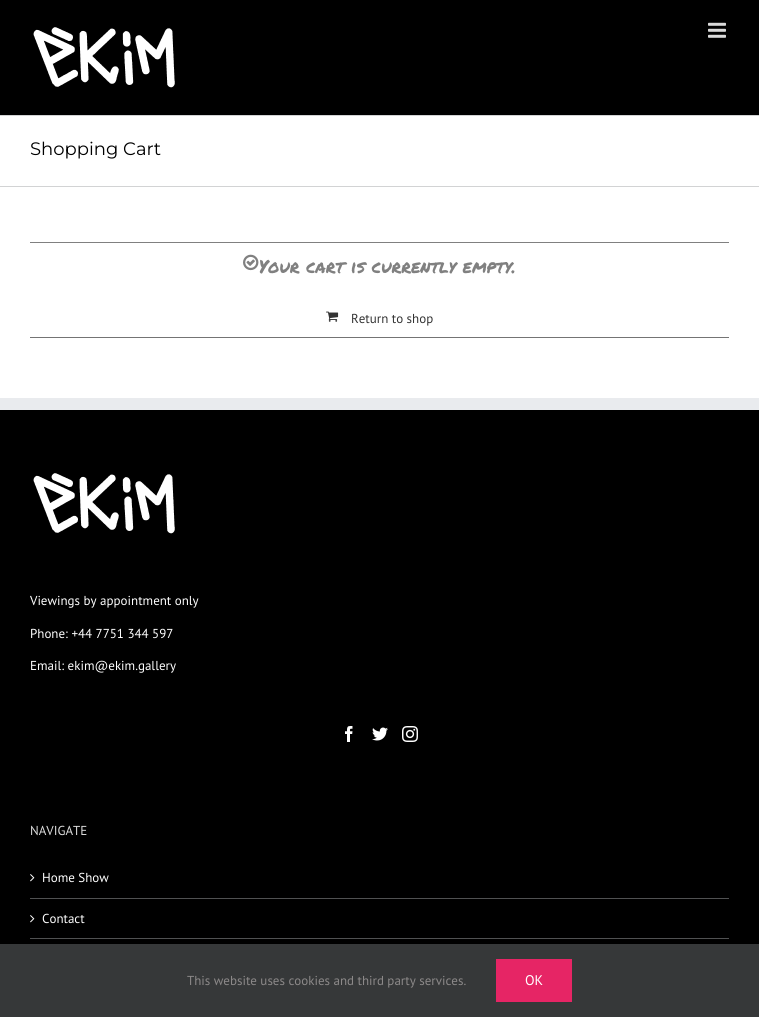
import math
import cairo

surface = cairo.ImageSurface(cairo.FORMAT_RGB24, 759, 1017)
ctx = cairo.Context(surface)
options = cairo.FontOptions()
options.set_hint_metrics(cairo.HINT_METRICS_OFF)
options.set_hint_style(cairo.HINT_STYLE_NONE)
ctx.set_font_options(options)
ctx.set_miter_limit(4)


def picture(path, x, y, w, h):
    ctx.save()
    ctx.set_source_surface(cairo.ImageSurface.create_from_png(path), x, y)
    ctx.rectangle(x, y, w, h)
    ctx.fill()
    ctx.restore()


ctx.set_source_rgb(1, 1, 1)
ctx.paint()
ctx.set_source_rgb(0, 0, 0)
ctx.rectangle(0, 0, 759, 115)
ctx.fill()
picture("img1.png", 33, 27, 142, 61)
picture("img2.png", 708, 22, 18, 16)
ctx.set_source_rgb(0.824, 0.827, 0.831)
ctx.rectangle(0, 115, 759, 1)
ctx.fill()
ctx.rectangle(0, 186, 759, 1)
ctx.fill()
ctx.select_font_face("Montserrat Thin")
ctx.set_font_size(18)
ctx.set_source_rgb(0, 0, 0)
ctx.move_to(30, 155)
ctx.show_text("Shopping Cart")
ctx.set_source_rgb(0.502, 0.502, 0.502)
ctx.rectangle(30, 242, 699, 1)
ctx.fill()
picture("img3.png", 243, 254, 16, 17)
ctx.select_font_face("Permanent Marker")
ctx.move_to(259, 273)
ctx.show_text("Your cart is currently empty.")
ctx.set_source_rgb(0.455, 0.455, 0.455)
ctx.rectangle(30, 337, 699, 1)
ctx.fill()
picture("img4.png", 326, 311, 13, 11)
ctx.select_font_face("PT Sans")
ctx.set_font_size(13)
ctx.set_source_rgb(0.2, 0.2, 0.2)
ctx.move_to(351, 323)
ctx.show_text("Return to shop")
ctx.set_source_rgb(0, 0, 0)
ctx.rectangle(0, 410, 759, 534)
ctx.fill()
ctx.set_source_rgb(0.914, 0.918, 0.933)
ctx.rectangle(0, 398, 759, 12)
ctx.fill()
picture("img1.png", 33, 473, 142, 61)
ctx.set_source_rgb(1, 1, 1)
ctx.move_to(30, 605)
ctx.show_text("Viewings by appointment only")
ctx.move_to(30, 638)
ctx.show_text("Phone: +44 7751 344 597")
ctx.move_to(30, 670)
ctx.show_text("Email: ekim@ekim.gallery")
picture("img5.png", 345, 726, 8, 16)
picture("img6.png", 372, 727, 16, 14)
picture("img7.png", 402, 726, 16, 16)
ctx.set_source_rgb(0.867, 0.867, 0.867)
ctx.move_to(30, 835)
ctx.show_text("NAVIGATE")
ctx.set_source_rgb(0.314, 0.318, 0.322)
ctx.rectangle(30, 898, 699, 1)
ctx.fill()
picture("img8.png", 30, 874, 5, 8)
ctx.set_source_rgb(1, 1, 1)
ctx.move_to(42, 882)
ctx.show_text("Home Show")
ctx.set_source_rgb(0.314, 0.318, 0.322)
ctx.rectangle(30, 938, 699, 1)
ctx.fill()
picture("img8.png", 30, 915, 5, 8)
ctx.set_source_rgb(1, 1, 1)
ctx.move_to(42, 923)
ctx.show_text("Contact")
ctx.set_source_rgb(0.212, 0.22, 0.224)
ctx.rectangle(0, 944, 759, 73)
ctx.fill()
ctx.set_source_rgb(0.549, 0.537, 0.537)
ctx.move_to(187, 985)
ctx.show_text("This website uses cookies and third party services.")
ctx.set_source_rgb(0.902, 0.145, 0.396)
ctx.rectangle(496, 959, 76, 43)
ctx.fill()
ctx.set_font_size(14)
ctx.set_source_rgb(1, 1, 1)
ctx.move_to(525, 985)
ctx.show_text("OK")
surface.write_to_png("page.png")
